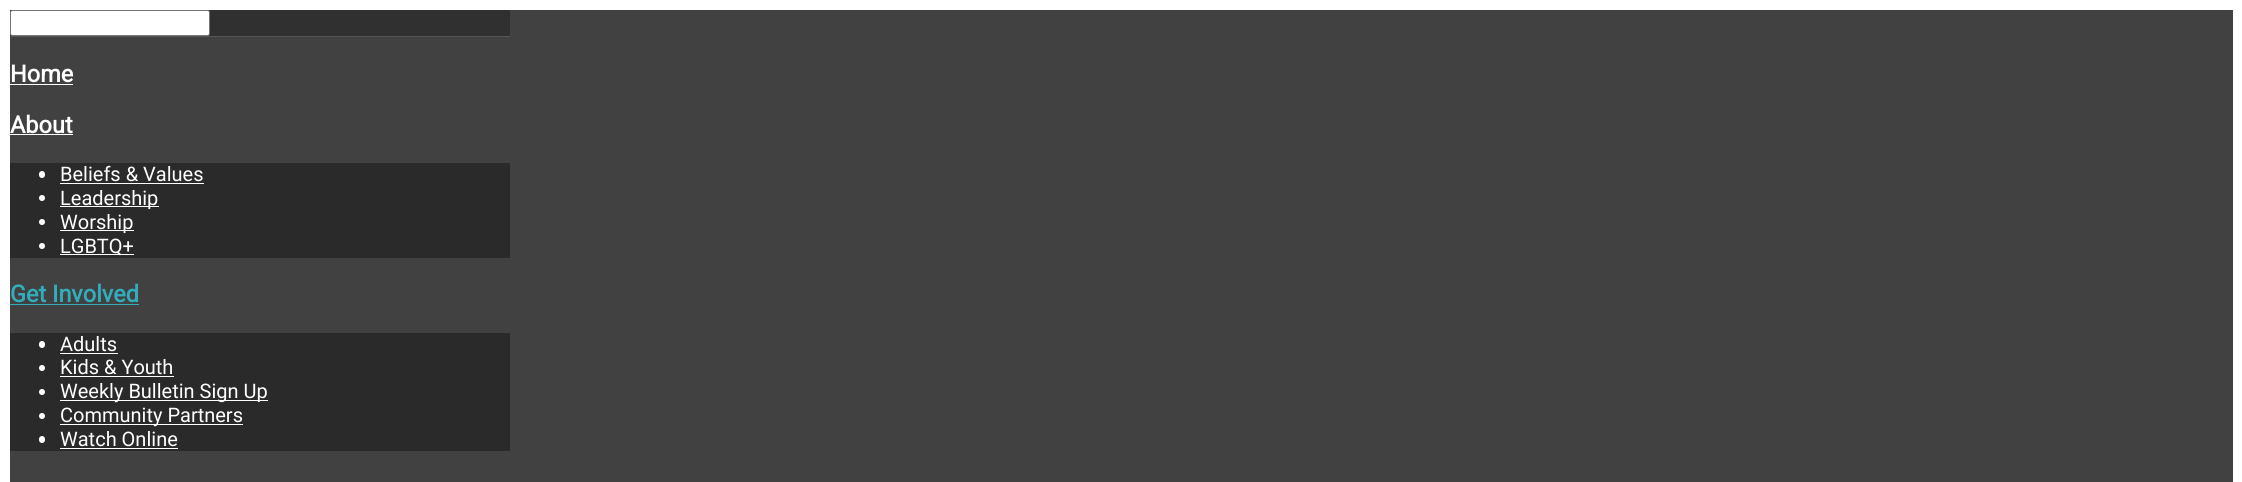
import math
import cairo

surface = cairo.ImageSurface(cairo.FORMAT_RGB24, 2242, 482)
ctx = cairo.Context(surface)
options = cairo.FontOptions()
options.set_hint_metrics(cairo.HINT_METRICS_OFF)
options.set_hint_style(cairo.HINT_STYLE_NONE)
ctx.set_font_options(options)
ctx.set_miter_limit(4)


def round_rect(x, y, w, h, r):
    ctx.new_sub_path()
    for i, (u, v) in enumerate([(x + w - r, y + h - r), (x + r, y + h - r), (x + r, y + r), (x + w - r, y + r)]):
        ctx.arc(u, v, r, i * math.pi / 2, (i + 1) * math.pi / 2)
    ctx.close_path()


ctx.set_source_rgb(1, 1, 1)
ctx.paint()
ctx.set_source_rgb(0.255, 0.255, 0.255)
ctx.rectangle(10, 10, 2223, 472)
ctx.fill()
ctx.set_source_rgb(0.333, 0.333, 0.333)
ctx.rectangle(10, 36, 500, 1)
ctx.fill()
ctx.set_source_rgb(0.188, 0.188, 0.188)
ctx.rectangle(10, 10, 500, 26)
ctx.fill()
ctx.set_source_rgb(1, 1, 1)
round_rect(10.5, 10.5, 199, 25, 2)
ctx.fill_preserve()
ctx.set_source_rgb(0.463, 0.463, 0.463)
ctx.set_line_width(1)
ctx.stroke()
ctx.select_font_face("Roboto", cairo.FONT_SLANT_NORMAL, cairo.FONT_WEIGHT_BOLD)
ctx.set_font_size(23.5)
ctx.set_source_rgb(1, 1, 1)
ctx.move_to(10, 82)
ctx.show_text("Home")
ctx.rectangle(10, 84, 63, 1)
ctx.fill()
ctx.move_to(10, 133)
ctx.show_text("About")
ctx.rectangle(10, 134, 63, 1)
ctx.fill()
ctx.set_source_rgb(0.165, 0.165, 0.165)
ctx.rectangle(10, 163, 500, 95)
ctx.fill()
ctx.set_source_rgb(1, 1, 1)
round_rect(39, 171, 6, 7, 3)
ctx.fill()
ctx.select_font_face("Roboto")
ctx.set_font_size(20)
ctx.move_to(60, 181)
ctx.show_text("Beliefs & Values")
ctx.rectangle(60, 183, 144, 1)
ctx.fill()
ctx.arc(42, 198, 3, 0, 2 * math.pi)
ctx.fill()
ctx.rectangle(60, 206, 99, 1)
ctx.fill()
ctx.move_to(60, 205)
ctx.show_text("Leadership")
ctx.new_path()
ctx.arc(42, 222, 3, 0, 2 * math.pi)
ctx.fill()
ctx.rectangle(60, 230, 74, 1)
ctx.fill()
ctx.move_to(60, 229)
ctx.show_text("Worship")
ctx.new_path()
ctx.arc(42, 246, 3, 0, 2 * math.pi)
ctx.fill()
ctx.rectangle(60, 254, 74, 1)
ctx.fill()
ctx.move_to(60, 253)
ctx.show_text("LGBTQ+")
ctx.select_font_face("Roboto", cairo.FONT_SLANT_NORMAL, cairo.FONT_WEIGHT_BOLD)
ctx.set_font_size(23.5)
ctx.set_source_rgb(0.196, 0.678, 0.737)
ctx.move_to(10, 302)
ctx.show_text("Get Involved")
ctx.rectangle(10, 304, 129, 1)
ctx.fill()
ctx.set_source_rgb(0.165, 0.165, 0.165)
ctx.rectangle(10, 333, 500, 118)
ctx.fill()
ctx.set_source_rgb(1, 1, 1)
round_rect(39, 341, 6, 7, 3)
ctx.fill()
ctx.select_font_face("Roboto")
ctx.set_font_size(20)
ctx.move_to(60, 351)
ctx.show_text("Adults")
ctx.rectangle(60, 353, 58, 1)
ctx.fill()
ctx.arc(42, 368, 3, 0, 2 * math.pi)
ctx.fill()
ctx.move_to(60, 374)
ctx.show_text("Kids & Youth")
ctx.rectangle(60, 376, 114, 1)
ctx.fill()
ctx.arc(42, 392, 3, 0, 2 * math.pi)
ctx.fill()
ctx.rectangle(60, 400, 208, 1)
ctx.fill()
ctx.move_to(60, 398)
ctx.show_text("Weekly Bulletin Sign Up")
ctx.new_path()
ctx.arc(42, 416, 3, 0, 2 * math.pi)
ctx.fill()
ctx.rectangle(60, 424, 183, 1)
ctx.fill()
ctx.move_to(60, 422)
ctx.show_text("Community Partners")
round_rect(39, 436, 6, 7, 3)
ctx.fill()
ctx.move_to(60, 446)
ctx.show_text("Watch Online")
ctx.rectangle(60, 448, 118, 1)
ctx.fill()
surface.write_to_png("page.png")
